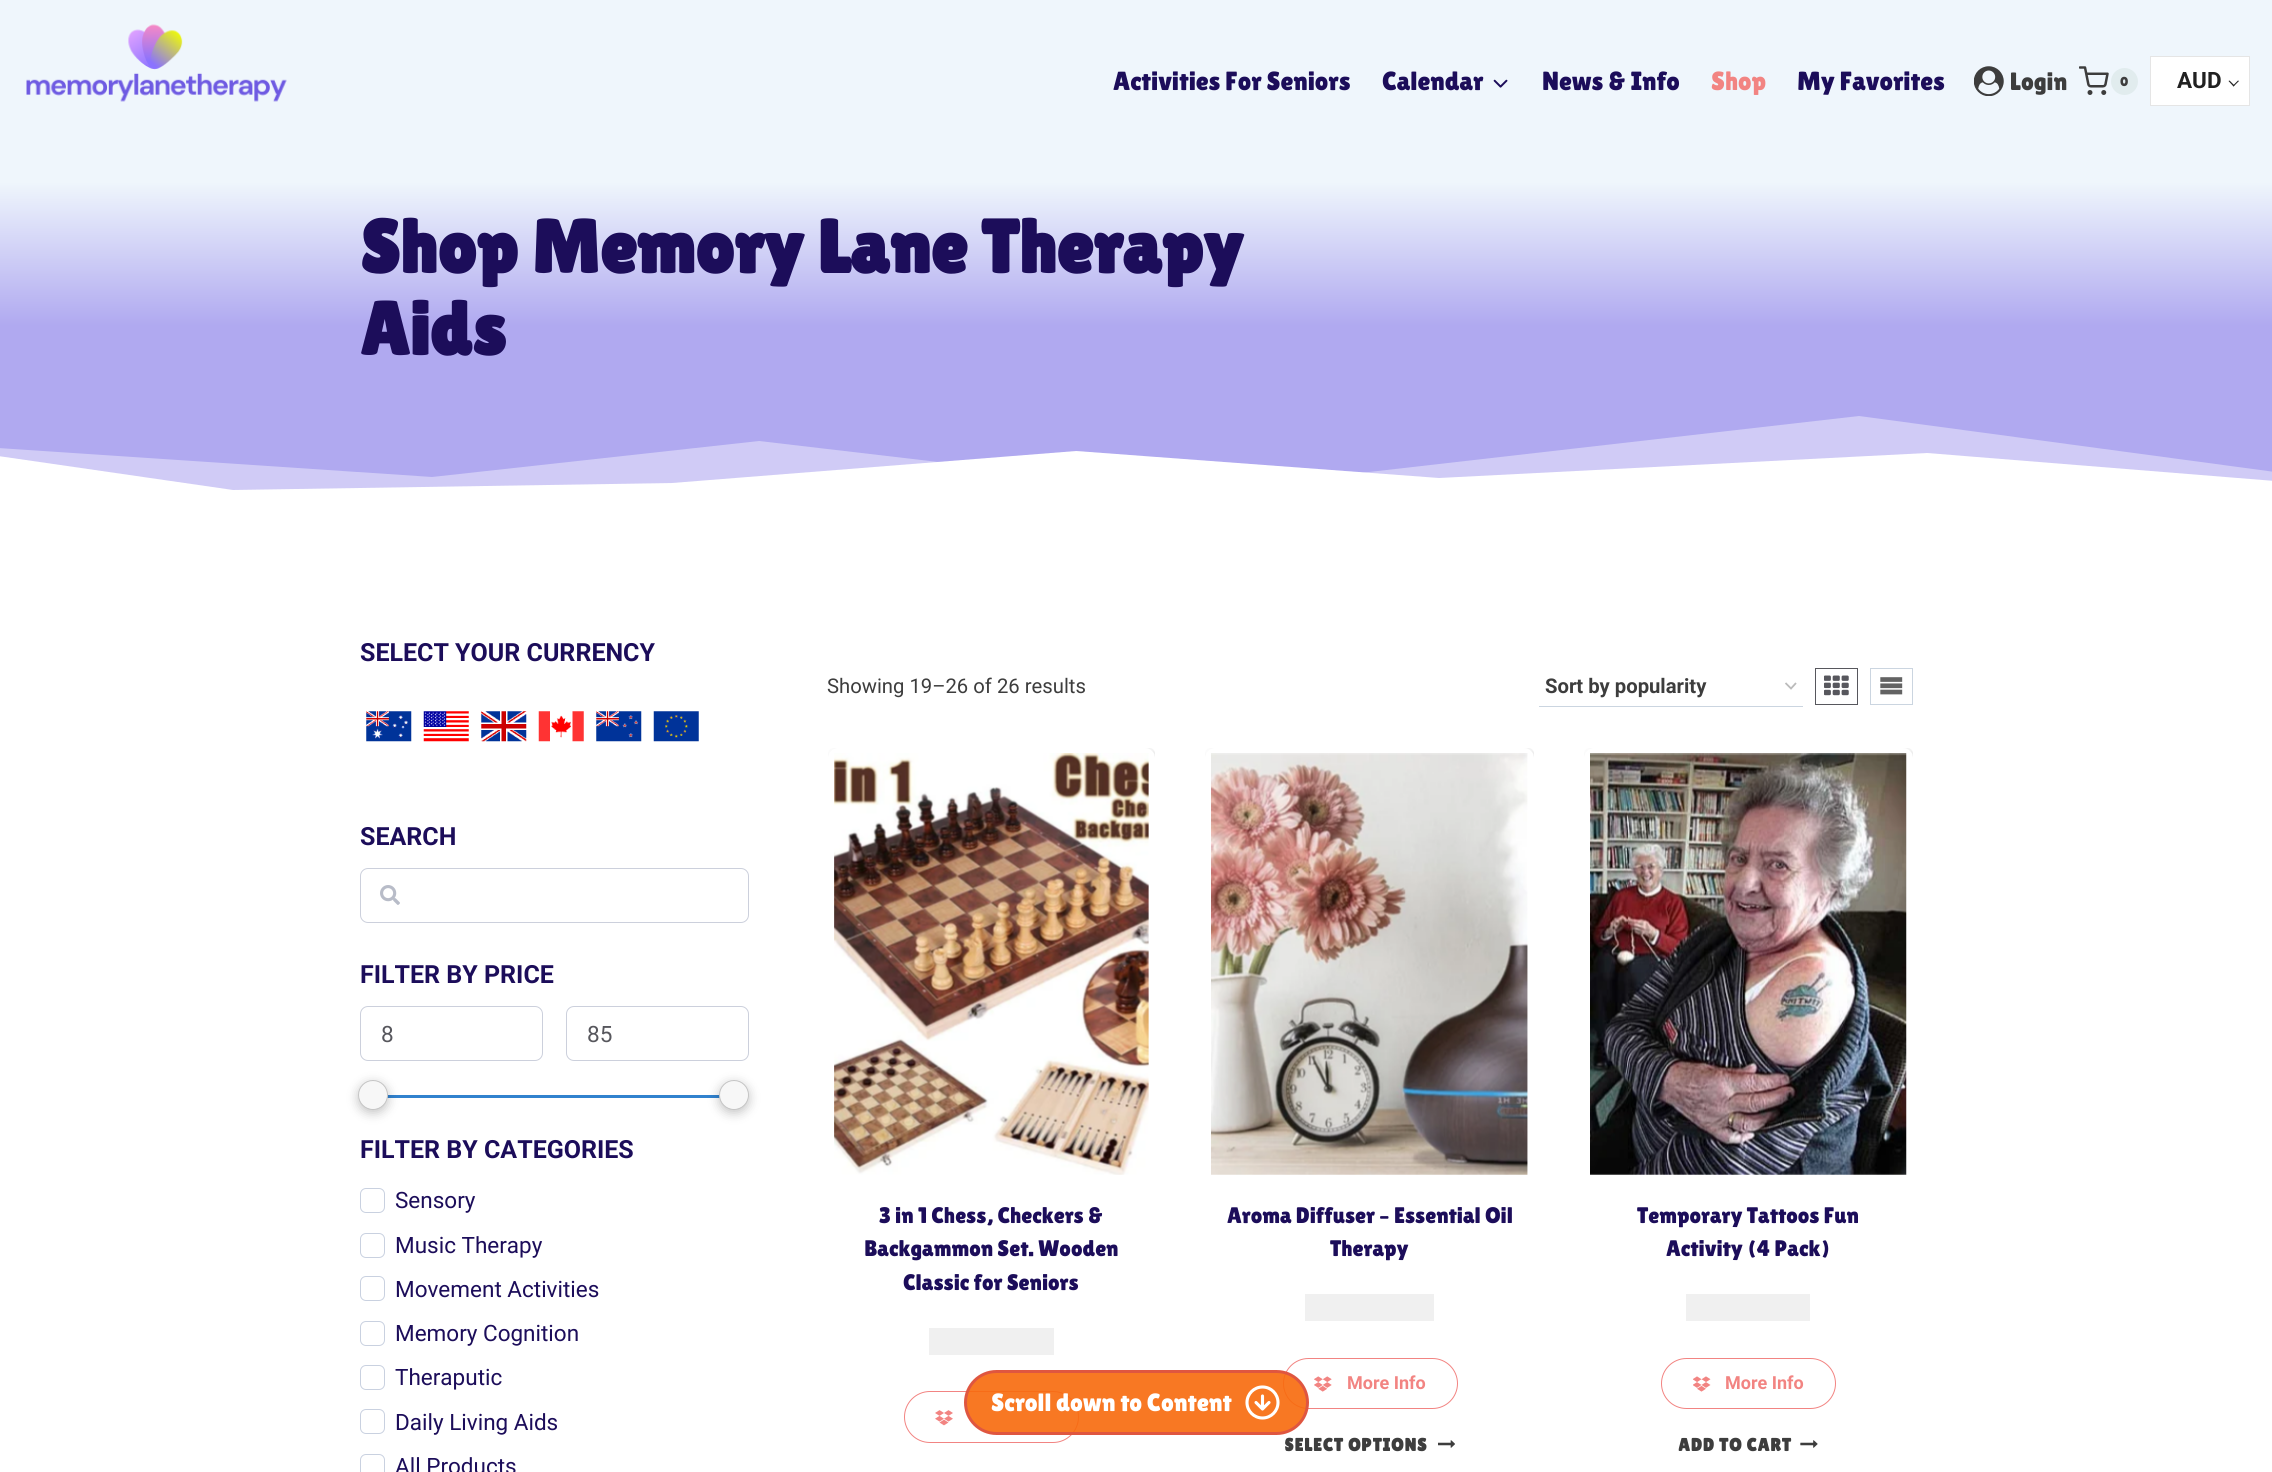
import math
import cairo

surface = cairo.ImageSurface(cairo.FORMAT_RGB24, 2272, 1472)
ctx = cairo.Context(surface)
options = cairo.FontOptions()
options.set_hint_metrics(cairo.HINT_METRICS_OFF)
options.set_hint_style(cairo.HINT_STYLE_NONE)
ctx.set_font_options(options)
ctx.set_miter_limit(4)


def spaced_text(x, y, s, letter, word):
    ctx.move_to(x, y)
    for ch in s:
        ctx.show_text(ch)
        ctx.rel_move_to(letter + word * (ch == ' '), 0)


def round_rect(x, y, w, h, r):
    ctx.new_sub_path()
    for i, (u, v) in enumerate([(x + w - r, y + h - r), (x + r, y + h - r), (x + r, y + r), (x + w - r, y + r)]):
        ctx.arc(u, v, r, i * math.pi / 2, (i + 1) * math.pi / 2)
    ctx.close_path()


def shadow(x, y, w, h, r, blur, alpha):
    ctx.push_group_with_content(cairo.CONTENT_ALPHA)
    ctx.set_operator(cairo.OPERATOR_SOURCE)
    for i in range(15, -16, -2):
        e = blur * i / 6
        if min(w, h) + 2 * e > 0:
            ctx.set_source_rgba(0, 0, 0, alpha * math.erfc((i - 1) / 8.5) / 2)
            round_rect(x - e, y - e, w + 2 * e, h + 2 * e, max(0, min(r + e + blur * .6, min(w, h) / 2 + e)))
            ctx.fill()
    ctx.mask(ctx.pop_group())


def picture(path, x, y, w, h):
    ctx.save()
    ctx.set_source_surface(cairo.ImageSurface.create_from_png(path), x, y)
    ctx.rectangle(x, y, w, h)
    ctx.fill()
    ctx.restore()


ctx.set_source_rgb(1, 1, 1)
ctx.paint()
gradient = cairo.LinearGradient(1136, 0, 1136, 534)
gradient.add_color_stop_rgba(0.34, 0.937, 0.965, 0.988, 1)
gradient.add_color_stop_rgba(0.61, 0.69, 0.663, 0.941, 1)
ctx.set_source(gradient)
ctx.rectangle(0, 0, 2272, 490)
ctx.fill()
picture("img1.png", 26, 24, 261, 78)
ctx.select_font_face("Lilita One")
ctx.set_font_size(26.25)
ctx.set_source_rgb(0.11, 0.051, 0.353)
ctx.move_to(1113, 90)
ctx.show_text("Activities For Seniors")
ctx.move_to(1382, 90)
ctx.show_text("Calendar")
picture("img2.png", 1493, 79, 15, 9)
ctx.move_to(1542, 90)
ctx.show_text("News & Info")
ctx.set_source_rgb(0.949, 0.518, 0.51)
ctx.move_to(1711, 90)
ctx.show_text("Shop")
ctx.set_source_rgb(0.11, 0.051, 0.353)
ctx.move_to(1797, 90)
ctx.show_text("My Favorites")
picture("img3.png", 1974, 66, 30, 30)
ctx.set_font_size(25)
ctx.set_source_rgb(0.239, 0.239, 0.239)
ctx.move_to(2010, 90)
ctx.show_text("Login")
picture("img4.png", 2079, 66, 30, 29)
ctx.set_source_rgb(0.882, 0.922, 0.933)
ctx.arc(2124.5, 81.5, 13.5, 0, 2 * math.pi)
ctx.fill()
ctx.set_font_size(13)
ctx.set_source_rgb(0.239, 0.239, 0.239)
ctx.move_to(2120, 86)
ctx.show_text("0")
ctx.set_source_rgb(1, 1, 1)
ctx.rectangle(2150.5, 56.5, 99, 49)
ctx.fill_preserve()
ctx.set_source_rgb(0.898, 0.898, 0.898)
ctx.set_line_width(1)
ctx.stroke()
ctx.select_font_face("Roboto", cairo.FONT_SLANT_NORMAL, cairo.FONT_WEIGHT_BOLD)
ctx.set_font_size(22.5)
ctx.set_source_rgb(0.129, 0.129, 0.129)
ctx.move_to(2177, 88)
ctx.show_text("AUD")
ctx.new_path()
ctx.move_to(2238, 80.5)
ctx.line_to(2239, 81)
ctx.line_to(2233.5, 86.5)
ctx.line_to(2233, 85.5)
ctx.close_path()
ctx.fill()
ctx.new_path()
ctx.move_to(2229.5, 80.5)
ctx.line_to(2234.5, 85.5)
ctx.line_to(2233.5, 86.5)
ctx.line_to(2228.5, 81)
ctx.close_path()
ctx.fill()
ctx.select_font_face("Lilita One", cairo.FONT_SLANT_NORMAL, cairo.FONT_WEIGHT_BOLD)
ctx.set_font_size(75)
ctx.set_source_rgb(0.11, 0.051, 0.353)
ctx.move_to(360, 273)
ctx.show_text("Shop Memory Lane Therapy")
ctx.move_to(360, 355)
ctx.show_text("Aids")
ctx.set_source_rgba(1, 1, 1, 0.4)
ctx.new_path()
ctx.move_to(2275, 472)
ctx.line_to(1859, 416)
ctx.line_to(1194, 492)
ctx.line_to(759, 441)
ctx.line_to(432, 477)
ctx.line_to(-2, 448)
ctx.line_to(-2, 535)
ctx.line_to(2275, 535)
ctx.close_path()
ctx.fill()
ctx.set_source_rgb(1, 1, 1)
ctx.new_path()
ctx.move_to(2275, 481)
ctx.line_to(1927, 453)
ctx.line_to(1439, 478)
ctx.line_to(1076, 451)
ctx.line_to(672, 483)
ctx.line_to(233, 490)
ctx.line_to(-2, 456)
ctx.line_to(-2, 535)
ctx.line_to(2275, 535)
ctx.close_path()
ctx.fill()
ctx.select_font_face("Roboto", cairo.FONT_SLANT_NORMAL, cairo.FONT_WEIGHT_BOLD)
ctx.set_font_size(25)
ctx.set_source_rgb(0.11, 0.051, 0.353)
ctx.move_to(360, 661)
ctx.show_text("SELECT YOUR CURRENCY")
picture("img5.png", 366, 711, 46, 31)
picture("img6.png", 423, 711, 46, 31)
picture("img7.png", 481, 711, 46, 31)
picture("img8.png", 538, 711, 46, 31)
picture("img9.png", 596, 711, 46, 31)
picture("img10.png", 653, 711, 46, 31)
ctx.move_to(360, 845)
ctx.show_text("SEARCH")
round_rect(360.5, 868.5, 388, 54, 7.5)
ctx.set_source_rgb(0.8, 0.816, 0.863)
ctx.stroke()
picture("img11.png", 380, 885, 20, 20)
ctx.set_source_rgb(0.11, 0.051, 0.353)
ctx.move_to(360, 983)
ctx.show_text("FILTER BY PRICE")
round_rect(360.5, 1006.5, 182, 54, 7.5)
ctx.set_source_rgb(0.8, 0.816, 0.863)
ctx.stroke()
ctx.select_font_face("Roboto")
ctx.set_font_size(22.5)
ctx.set_source_rgb(0.341, 0.341, 0.365)
ctx.move_to(381, 1042)
ctx.show_text("8")
round_rect(566.5, 1006.5, 182, 54, 7.5)
ctx.set_source_rgb(0.8, 0.816, 0.863)
ctx.stroke()
ctx.set_source_rgb(0.341, 0.341, 0.365)
ctx.move_to(587, 1042)
ctx.show_text("85")
ctx.set_source_rgb(0.192, 0.51, 0.808)
ctx.rectangle(387, 1095, 333, 3)
ctx.fill()
ctx.set_source_rgb(0, 0, 0)
shadow(358, 1083, 30, 30, 15, 5.5, 0.23)
ctx.set_source_rgb(0.965, 0.965, 0.965)
ctx.arc(373, 1095, 14.5, 0, 2 * math.pi)
ctx.fill_preserve()
ctx.set_source_rgb(0.773, 0.773, 0.773)
ctx.stroke()
ctx.set_source_rgb(0, 0, 0)
shadow(719, 1083, 30, 30, 15, 5.5, 0.23)
ctx.set_source_rgb(0.965, 0.965, 0.965)
ctx.arc(734, 1095, 14.5, 0, 2 * math.pi)
ctx.fill_preserve()
ctx.set_source_rgb(0.773, 0.773, 0.773)
ctx.stroke()
ctx.select_font_face("Roboto", cairo.FONT_SLANT_NORMAL, cairo.FONT_WEIGHT_BOLD)
ctx.set_font_size(25)
ctx.set_source_rgb(0.11, 0.051, 0.353)
ctx.move_to(360, 1158)
ctx.show_text("FILTER BY CATEGORIES")
round_rect(360.5, 1188.5, 24, 24, 5.5)
ctx.set_source_rgb(0.788, 0.82, 0.878)
ctx.stroke()
ctx.select_font_face("Roboto")
ctx.set_font_size(22.5)
ctx.set_source_rgb(0.11, 0.051, 0.353)
ctx.move_to(395, 1208)
ctx.show_text("Sensory")
round_rect(360.5, 1233.5, 24, 24, 5.5)
ctx.set_source_rgb(0.788, 0.82, 0.878)
ctx.stroke()
ctx.set_source_rgb(0.11, 0.051, 0.353)
ctx.move_to(395, 1253)
ctx.show_text("Music Therapy")
round_rect(360.5, 1276.5, 24, 24, 5.5)
ctx.set_source_rgb(0.788, 0.82, 0.878)
ctx.stroke()
ctx.set_source_rgb(0.11, 0.051, 0.353)
ctx.move_to(395, 1297)
ctx.show_text("Movement Activities")
round_rect(360.5, 1321.5, 24, 24, 5.5)
ctx.set_source_rgb(0.788, 0.82, 0.878)
ctx.stroke()
ctx.set_source_rgb(0.11, 0.051, 0.353)
ctx.move_to(395, 1341)
ctx.show_text("Memory Cognition")
round_rect(360.5, 1365.5, 24, 24, 5.5)
ctx.set_source_rgb(0.788, 0.82, 0.878)
ctx.stroke()
ctx.set_source_rgb(0.11, 0.051, 0.353)
ctx.move_to(395, 1385)
ctx.show_text("Theraputic")
round_rect(360.5, 1409.5, 24, 24, 5.5)
ctx.set_source_rgb(0.788, 0.82, 0.878)
ctx.stroke()
ctx.set_source_rgb(0.11, 0.051, 0.353)
ctx.move_to(395, 1430)
ctx.show_text("Daily Living Aids")
round_rect(360.5, 1454.5, 24, 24, 5.5)
ctx.set_source_rgb(0.788, 0.82, 0.878)
ctx.stroke()
ctx.set_source_rgb(0.11, 0.051, 0.353)
ctx.move_to(395, 1474)
ctx.show_text("All Products")
ctx.set_font_size(20.25)
ctx.set_source_rgb(0.239, 0.239, 0.239)
ctx.move_to(827, 693)
ctx.show_text("Showing 19–26 of 26 results")
ctx.new_path()
ctx.move_to(1785.5, 683)
ctx.line_to(1791, 688.5)
ctx.line_to(1796, 683)
ctx.set_source_rgb(0.733, 0.733, 0.733)
ctx.set_line_width(1.8)
ctx.stroke()
ctx.set_source_rgb(0.796, 0.835, 0.878)
ctx.rectangle(1539, 706, 264, 1)
ctx.fill()
ctx.select_font_face("Roboto", cairo.FONT_SLANT_NORMAL, cairo.FONT_WEIGHT_BOLD)
ctx.set_source_rgb(0.239, 0.239, 0.239)
ctx.move_to(1545, 693)
ctx.show_text("Sort by popularity")
ctx.rectangle(1815.5, 668.5, 42, 36)
ctx.set_source_rgb(0.341, 0.341, 0.365)
ctx.set_line_width(1)
ctx.stroke()
picture("img12.png", 1824, 675, 25, 21)
ctx.rectangle(1870.5, 668.5, 42, 36)
ctx.set_source_rgb(0.796, 0.835, 0.878)
ctx.stroke()
picture("img13.png", 1880, 677, 23, 18)
ctx.save()
round_rect(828, 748, 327, 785, 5)
ctx.clip()
ctx.set_source_rgb(0, 0, 0)
shadow(834, 754, 327, 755, 10, 9, 0.2)
ctx.restore()
ctx.set_source_rgb(1, 1, 1)
round_rect(831, 751, 321, 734, 7)
ctx.fill_preserve()
ctx.set_line_width(6)
ctx.stroke()
picture("img14.png", 834, 753, 315, 422)
ctx.select_font_face("Lilita One")
ctx.set_font_size(22.5)
ctx.set_source_rgb(0.11, 0.051, 0.353)
ctx.move_to(879, 1223)
ctx.show_text("3 in 1 Chess, Checkers &")
ctx.move_to(864, 1256)
ctx.show_text("Backgammon Set. Wooden")
ctx.move_to(903, 1290)
ctx.show_text("Classic for Seniors")
ctx.set_source_rgb(0.941, 0.941, 0.941)
ctx.rectangle(929, 1328, 125, 27)
ctx.fill()
round_rect(904.5, 1391.5, 174, 51, 25.5)
ctx.set_source_rgb(0.949, 0.518, 0.51)
ctx.set_line_width(1)
ctx.stroke()
picture("img15.png", 935, 1410, 18, 16)
ctx.save()
round_rect(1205, 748, 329, 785, 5)
ctx.clip()
ctx.set_source_rgb(0, 0, 0)
shadow(1211, 754, 329, 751, 10, 9, 0.2)
ctx.restore()
ctx.set_source_rgb(1, 1, 1)
round_rect(1208, 751, 323, 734, 7)
ctx.fill_preserve()
ctx.set_line_width(6)
ctx.stroke()
picture("img16.png", 1211, 753, 317, 422)
ctx.set_source_rgb(0.11, 0.051, 0.353)
ctx.move_to(1227, 1223)
ctx.show_text("Aroma Diffuser – Essential Oil")
ctx.move_to(1330, 1256)
ctx.show_text("Therapy")
ctx.set_source_rgb(0.941, 0.941, 0.941)
ctx.rectangle(1305, 1294, 129, 27)
ctx.fill()
round_rect(1283.5, 1358.5, 174, 50, 25)
ctx.set_source_rgb(0.949, 0.518, 0.51)
ctx.set_line_width(1)
ctx.stroke()
picture("img17.png", 1314, 1376, 18, 16)
ctx.select_font_face("Roboto", cairo.FONT_SLANT_NORMAL, cairo.FONT_WEIGHT_BOLD)
ctx.set_font_size(18)
ctx.move_to(1347, 1389)
ctx.show_text("More Info")
ctx.save()
round_rect(1285, 1421, 170, 48, 24)
ctx.clip()
ctx.select_font_face("Lilita One", cairo.FONT_SLANT_NORMAL, cairo.FONT_WEIGHT_BOLD)
ctx.set_source_rgb(0.239, 0.239, 0.239)
spaced_text(1284, 1451, "SELECT OPTIONS", 0.9, 0)
ctx.restore()
picture("img18.png", 1438, 1440, 17, 8)
ctx.save()
round_rect(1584, 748, 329, 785, 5)
ctx.clip()
ctx.set_source_rgb(0, 0, 0)
shadow(1590, 754, 329, 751, 10, 9, 0.2)
ctx.restore()
ctx.set_source_rgb(1, 1, 1)
round_rect(1587, 751, 323, 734, 7)
ctx.fill_preserve()
ctx.set_line_width(6)
ctx.stroke()
picture("img19.png", 1590, 753, 317, 422)
ctx.select_font_face("Lilita One")
ctx.set_font_size(22.5)
ctx.set_source_rgb(0.11, 0.051, 0.353)
ctx.move_to(1637, 1223)
ctx.show_text("Temporary Tattoos Fun")
ctx.move_to(1666, 1256)
ctx.show_text("Activity (4 Pack)")
ctx.set_source_rgb(0.941, 0.941, 0.941)
ctx.rectangle(1686, 1294, 124, 27)
ctx.fill()
round_rect(1661.5, 1358.5, 174, 50, 25)
ctx.set_source_rgb(0.949, 0.518, 0.51)
ctx.set_line_width(1)
ctx.stroke()
picture("img20.png", 1693, 1376, 18, 16)
ctx.select_font_face("Roboto", cairo.FONT_SLANT_NORMAL, cairo.FONT_WEIGHT_BOLD)
ctx.set_font_size(18)
ctx.move_to(1725, 1389)
ctx.show_text("More Info")
ctx.save()
round_rect(1678, 1421, 141, 48, 24)
ctx.clip()
ctx.select_font_face("Lilita One", cairo.FONT_SLANT_NORMAL, cairo.FONT_WEIGHT_BOLD)
ctx.set_source_rgb(0.239, 0.239, 0.239)
spaced_text(1678, 1451, "ADD TO CART", 0.9, 0)
ctx.restore()
picture("img21.png", 1800, 1440, 18, 8)
ctx.set_source_rgba(0.969, 0.416, 0.047, 0.9)
round_rect(965.5, 1371.5, 342, 62, 31)
ctx.fill_preserve()
ctx.set_source_rgb(0.875, 0.337, 0.251)
ctx.set_line_width(3)
ctx.stroke()
ctx.select_font_face("Lilita One")
ctx.set_font_size(25)
ctx.set_source_rgb(1, 1, 1)
ctx.move_to(991, 1411)
ctx.show_text("Scroll down to Content")
ctx.new_path()
ctx.arc(1262.5, 1402.5, 15.5, 0, 2 * math.pi)
ctx.set_line_width(3.1)
ctx.stroke()
ctx.new_path()
ctx.move_to(1256, 1402.5)
ctx.line_to(1262.5, 1409)
ctx.line_to(1269, 1402.5)
ctx.move_to(1262.5, 1396)
ctx.line_to(1262.5, 1409)
ctx.set_line_cap(cairo.LINE_CAP_ROUND)
ctx.set_line_join(cairo.LINE_JOIN_ROUND)
ctx.stroke()
surface.write_to_png("page.png")
